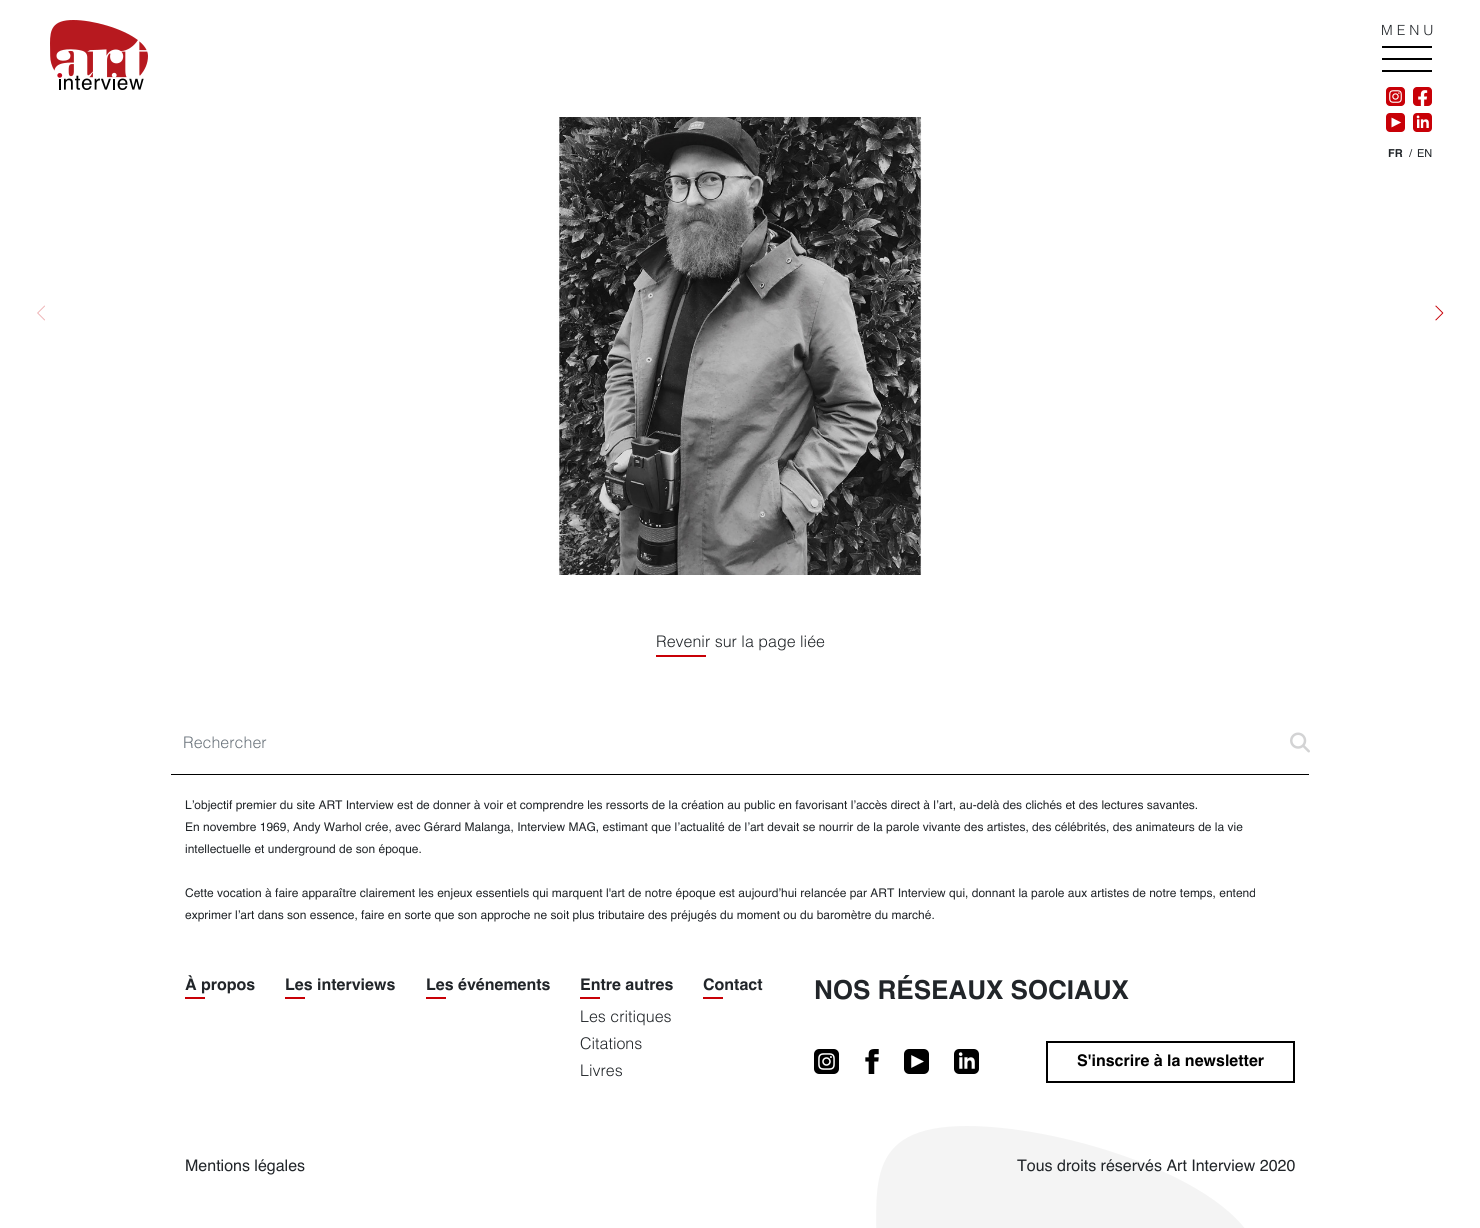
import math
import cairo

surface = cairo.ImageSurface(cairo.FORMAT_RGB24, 1480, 1228)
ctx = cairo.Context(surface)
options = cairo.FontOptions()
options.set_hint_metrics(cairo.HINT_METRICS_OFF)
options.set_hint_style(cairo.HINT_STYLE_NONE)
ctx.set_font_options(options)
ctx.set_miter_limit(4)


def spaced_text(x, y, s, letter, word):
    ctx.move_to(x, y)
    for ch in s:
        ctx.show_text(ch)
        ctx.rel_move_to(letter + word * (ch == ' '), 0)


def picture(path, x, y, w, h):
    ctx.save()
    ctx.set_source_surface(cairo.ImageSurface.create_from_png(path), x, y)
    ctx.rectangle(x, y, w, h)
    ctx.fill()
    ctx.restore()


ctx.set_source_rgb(1, 1, 1)
ctx.paint()
picture("img1.png", 50, 20, 98, 70)
ctx.select_font_face("Helvetica Light")
ctx.set_font_size(14)
ctx.set_source_rgb(0.129, 0.145, 0.161)
spaced_text(1381, 35, "MENU", 4, 0)
ctx.set_source_rgb(0, 0, 0)
ctx.rectangle(1382, 46, 50, 2)
ctx.fill()
ctx.rectangle(1382, 58, 50, 2)
ctx.fill()
ctx.rectangle(1382, 70, 50, 2)
ctx.fill()
picture("img2.png", 1386, 87, 19, 19)
picture("img3.png", 1413, 87, 19, 19)
picture("img4.png", 1386, 113, 19, 19)
picture("img5.png", 1413, 113, 19, 19)
ctx.select_font_face("Helvetica", cairo.FONT_SLANT_NORMAL, cairo.FONT_WEIGHT_BOLD)
ctx.set_font_size(11)
ctx.set_source_rgb(0.129, 0.145, 0.161)
ctx.move_to(1388, 157)
ctx.show_text("FR")
ctx.select_font_face("Helvetica")
ctx.move_to(1409, 157)
ctx.show_text("/")
ctx.move_to(1417, 157)
ctx.show_text("EN")
picture("img6.png", 37, 305, 8, 16)
picture("img7.png", 557, 117, 365, 458)
picture("img8.png", 1435, 305, 9, 16)
ctx.select_font_face("Helvetica Light")
ctx.set_font_size(16)
ctx.move_to(656, 647)
ctx.show_text("Revenir sur la page liée")
ctx.set_source_rgb(0.784, 0, 0.027)
ctx.rectangle(656, 655, 50, 2)
ctx.fill()
ctx.set_source_rgb(0, 0, 0)
ctx.rectangle(171, 774, 1138, 1)
ctx.fill()
ctx.set_source_rgb(0.424, 0.459, 0.49)
ctx.move_to(183, 748)
ctx.show_text("Rechercher")
picture("img9.png", 1290, 732, 20, 21)
ctx.select_font_face("Helvetica")
ctx.set_font_size(12)
ctx.set_source_rgb(0.129, 0.145, 0.161)
ctx.move_to(185, 809)
ctx.show_text("L’objectif premier du site ART Interview est de donner à voir et comprendre les ressorts de la création au public en favorisant l’accès direct à l’art, au-delà des clichés et des lectures savantes.")
ctx.move_to(185, 831)
ctx.show_text("En novembre 1969, Andy Warhol crée, avec Gérard Malanga, Interview MAG, estimant que l’actualité de l’art devait se nourrir de la parole vivante des artistes, des célébrités, des animateurs de la vie")
ctx.move_to(185, 853)
ctx.show_text("intellectuelle et underground de son époque.")
ctx.move_to(185, 897)
ctx.show_text("Cette vocation à faire apparaître clairement les enjeux essentiels qui marquent l'art de notre époque est aujourd’hui relancée par ART Interview qui, donnant la parole aux artistes de notre temps, entend")
ctx.move_to(185, 919)
ctx.show_text("exprimer l’art dans son essence, faire en sorte que son approche ne soit plus tributaire des préjugés du moment ou du baromètre du marché.")
ctx.select_font_face("Helvetica", cairo.FONT_SLANT_NORMAL, cairo.FONT_WEIGHT_BOLD)
ctx.set_font_size(16)
ctx.move_to(185, 990)
ctx.show_text("À propos")
ctx.set_source_rgb(0.784, 0, 0.027)
ctx.rectangle(185, 997, 20, 2)
ctx.fill()
ctx.set_source_rgb(0.129, 0.145, 0.161)
ctx.move_to(285, 990)
ctx.show_text("Les interviews")
ctx.set_source_rgb(0.784, 0, 0.027)
ctx.rectangle(285, 997, 20, 2)
ctx.fill()
ctx.set_source_rgb(0.129, 0.145, 0.161)
ctx.move_to(426, 990)
ctx.show_text("Les événements")
ctx.set_source_rgb(0.784, 0, 0.027)
ctx.rectangle(426, 997, 20, 2)
ctx.fill()
ctx.set_source_rgb(0.129, 0.145, 0.161)
ctx.move_to(580, 990)
ctx.show_text("Entre autres")
ctx.set_source_rgb(0.784, 0, 0.027)
ctx.rectangle(580, 997, 20, 2)
ctx.fill()
ctx.select_font_face("Helvetica Light")
ctx.set_source_rgb(0.129, 0.145, 0.161)
ctx.move_to(580, 1022)
ctx.show_text("Les critiques")
ctx.move_to(580, 1049)
ctx.show_text("Citations")
ctx.move_to(580, 1076)
ctx.show_text("Livres")
ctx.select_font_face("Helvetica", cairo.FONT_SLANT_NORMAL, cairo.FONT_WEIGHT_BOLD)
ctx.move_to(703, 990)
ctx.show_text("Contact")
ctx.set_source_rgb(0.784, 0, 0.027)
ctx.rectangle(703, 997, 20, 2)
ctx.fill()
ctx.set_font_size(26)
ctx.set_source_rgb(0.129, 0.145, 0.161)
ctx.move_to(814, 999)
ctx.show_text("NOS RÉSEAUX SOCIAUX")
picture("img10.png", 814, 1049, 25, 25)
picture("img11.png", 865, 1049, 14, 25)
picture("img12.png", 904, 1049, 25, 25)
picture("img13.png", 954, 1049, 25, 25)
ctx.rectangle(1047, 1042, 247, 40)
ctx.set_source_rgb(0, 0, 0)
ctx.stroke()
ctx.set_font_size(16)
ctx.move_to(1077, 1066)
ctx.show_text("S'inscrire à la newsletter")
ctx.set_source_rgb(0.957, 0.957, 0.957)
ctx.new_path()
ctx.move_to(1068, 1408)
ctx.curve_to(1174, 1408, 1260, 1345, 1260, 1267)
ctx.curve_to(1260, 1189, 1073, 1126, 967, 1126)
ctx.curve_to(861, 1126, 877, 1189, 877, 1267)
ctx.curve_to(877, 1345, 963, 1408, 1068, 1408)
ctx.close_path()
ctx.fill()
ctx.select_font_face("Helvetica")
ctx.set_source_rgb(0.129, 0.145, 0.161)
ctx.move_to(185, 1171)
ctx.show_text("Mentions légales")
ctx.move_to(1017, 1171)
ctx.show_text("Tous droits réservés Art Interview 2020")
surface.write_to_png("page.png")
